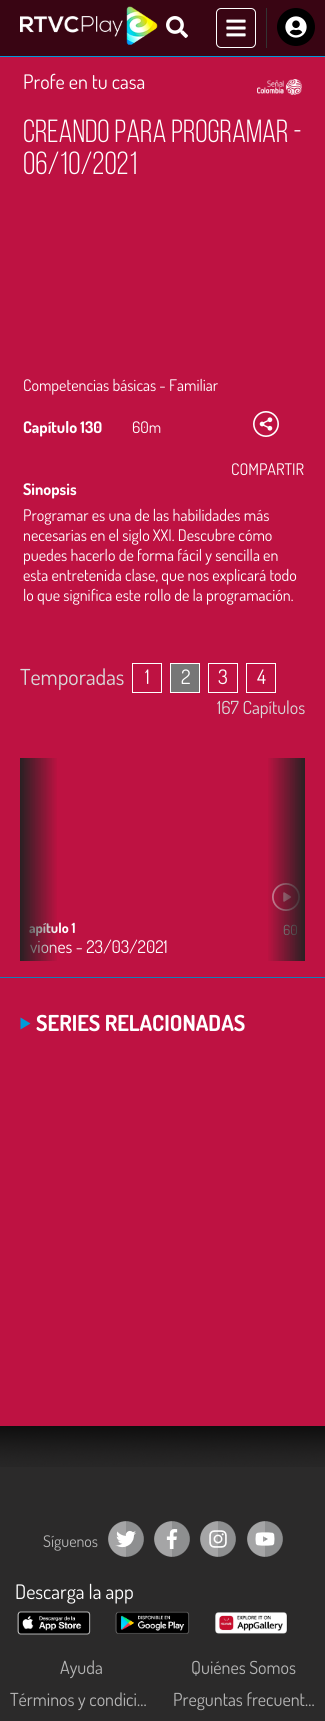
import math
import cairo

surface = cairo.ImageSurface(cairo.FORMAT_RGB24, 325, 1721)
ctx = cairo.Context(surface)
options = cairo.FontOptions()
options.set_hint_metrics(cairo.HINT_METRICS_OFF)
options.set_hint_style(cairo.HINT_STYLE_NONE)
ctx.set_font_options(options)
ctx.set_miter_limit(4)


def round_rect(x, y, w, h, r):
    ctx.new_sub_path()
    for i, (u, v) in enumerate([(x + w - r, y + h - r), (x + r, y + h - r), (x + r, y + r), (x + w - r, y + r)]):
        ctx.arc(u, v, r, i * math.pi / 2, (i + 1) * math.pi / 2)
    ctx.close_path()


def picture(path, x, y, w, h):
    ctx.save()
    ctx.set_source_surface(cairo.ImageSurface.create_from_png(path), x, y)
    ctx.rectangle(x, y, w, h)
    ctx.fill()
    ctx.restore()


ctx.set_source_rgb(0.169, 0.165, 0.165)
ctx.paint()
ctx.set_source_rgb(0.224, 0.02, 0.078)
ctx.rectangle(0, 0, 325, 56)
ctx.fill()
picture("img1.png", 20, 6, 138, 39)
picture("img2.png", 166, 16, 22, 22)
round_rect(216.5, 8.5, 39, 39, 4.5)
ctx.set_source_rgb(1, 1, 1)
ctx.set_line_width(1)
ctx.stroke()
picture("img3.png", 226, 19, 20, 18)
ctx.set_source_rgb(0.2, 0.2, 0.2)
ctx.rectangle(266, 8, 1, 40)
ctx.fill()
ctx.set_source_rgb(0, 0, 0)
ctx.arc(296, 27, 19, 0, 2 * math.pi)
ctx.fill()
picture("img4.png", 285, 16, 22, 22)
ctx.set_source_rgb(0, 0.608, 0.859)
ctx.rectangle(0, 56, 325, 1)
ctx.fill()
ctx.set_source_rgb(0.745, 0.071, 0.259)
ctx.rectangle(0, 57, 325, 1369)
ctx.fill()
ctx.select_font_face("Dosis")
ctx.set_font_size(20)
ctx.set_source_rgb(1, 1, 1)
ctx.move_to(23, 89)
ctx.show_text("Profe en tu casa")
picture("img5.png", 257, 79, 45, 16)
ctx.select_font_face("Bebas Neue")
ctx.set_font_size(32)
ctx.move_to(23, 142)
ctx.show_text("Creando para programar -")
ctx.move_to(23, 174)
ctx.show_text("06/10/2021")
ctx.select_font_face("Dosis")
ctx.set_font_size(16)
ctx.move_to(23, 391)
ctx.show_text("Competencias básicas - Familiar")
ctx.select_font_face("Dosis", cairo.FONT_SLANT_NORMAL, cairo.FONT_WEIGHT_BOLD)
ctx.move_to(23, 433)
ctx.show_text("Capítulo 130")
ctx.select_font_face("Dosis")
ctx.move_to(132, 433)
ctx.show_text("60m")
picture("img6.png", 253, 411, 26, 26)
ctx.move_to(231, 475)
ctx.show_text("COMPARTIR")
ctx.select_font_face("Dosis", cairo.FONT_SLANT_NORMAL, cairo.FONT_WEIGHT_BOLD)
ctx.move_to(23, 495)
ctx.show_text("Sinopsis")
ctx.select_font_face("Dosis")
ctx.move_to(23, 521)
ctx.show_text("Programar es una de las habilidades más")
ctx.move_to(23, 541)
ctx.show_text("necesarias en el siglo XXI. Descubre cómo")
ctx.move_to(23, 561)
ctx.show_text("puedes hacerlo de forma fácil y sencilla en")
ctx.move_to(23, 581)
ctx.show_text("esta entretenida clase, que nos explicará todo")
ctx.move_to(23, 601)
ctx.show_text("lo que significa este rollo de la programación.")
ctx.set_font_size(22)
ctx.set_source_rgb(0.851, 0.851, 0.851)
ctx.move_to(20, 685)
ctx.show_text("Temporadas")
ctx.rectangle(132.5, 663.5, 29, 29)
ctx.set_source_rgb(1, 1, 1)
ctx.stroke()
ctx.set_font_size(20)
ctx.move_to(145, 684)
ctx.show_text("1")
ctx.set_source_rgb(0.467, 0.467, 0.467)
ctx.rectangle(170.5, 663.5, 29, 29)
ctx.fill_preserve()
ctx.set_source_rgb(1, 1, 1)
ctx.stroke()
ctx.move_to(181, 684)
ctx.show_text("2")
ctx.rectangle(208.5, 663.5, 29, 29)
ctx.stroke()
ctx.move_to(218, 684)
ctx.show_text("3")
ctx.rectangle(246.5, 663.5, 29, 29)
ctx.stroke()
ctx.move_to(257, 684)
ctx.show_text("4")
ctx.set_font_size(18)
ctx.set_source_rgb(0.851, 0.851, 0.851)
ctx.move_to(217, 714)
ctx.show_text("167 Capítulos")
ctx.set_source_rgb(0.063, 0.498, 0.725)
ctx.rectangle(0, 977, 325, 1)
ctx.fill()
ctx.select_font_face("Dosis", cairo.FONT_SLANT_NORMAL, cairo.FONT_WEIGHT_BOLD)
ctx.set_font_size(14)
ctx.set_source_rgb(1, 1, 1)
ctx.move_to(29, 933)
ctx.show_text("apítulo 1")
ctx.select_font_face("Dosis")
ctx.set_font_size(17.5)
ctx.move_to(30, 953)
ctx.show_text("viones - 23/03/2021")
gradient = cairo.LinearGradient(58, 874, 18, 874)
gradient.add_color_stop_rgba(0, 0.129, 0.129, 0.129, 0)
gradient.add_color_stop_rgba(1, 0.129, 0.129, 0.129, 1)
ctx.set_source(gradient)
ctx.rectangle(20, 758, 37, 203)
ctx.fill()
picture("img7.png", 272, 883, 28, 28)
ctx.set_font_size(14)
ctx.set_source_rgb(0.706, 0.706, 0.706)
ctx.move_to(283, 935)
ctx.show_text("60")
gradient = cairo.LinearGradient(267, 874, 307, 874)
gradient.add_color_stop_rgba(0, 0.129, 0.129, 0.129, 0)
gradient.add_color_stop_rgba(1, 0.129, 0.129, 0.129, 1)
ctx.set_source(gradient)
ctx.rectangle(268, 758, 37, 203)
ctx.fill()
ctx.set_source_rgb(0, 0.608, 0.859)
ctx.set_fill_rule(cairo.FILL_RULE_EVEN_ODD)
ctx.new_path()
ctx.move_to(30.5, 1023.5)
ctx.line_to(20.5, 1029.5)
ctx.line_to(20.5, 1017.5)
ctx.close_path()
ctx.fill()
ctx.select_font_face("Dosis", cairo.FONT_SLANT_NORMAL, cairo.FONT_WEIGHT_BOLD)
ctx.set_font_size(22)
ctx.set_source_rgb(1, 1, 1)
ctx.move_to(36, 1031)
ctx.show_text("SERIES RELACIONADAS")
picture("img8.png", 0, 1426, 325, 41)
ctx.select_font_face("Dosis")
ctx.set_font_size(16)
ctx.set_source_rgb(0.706, 0.706, 0.706)
ctx.move_to(43, 1547)
ctx.show_text("Síguenos")
picture("img9.png", 108, 1521, 36, 36)
picture("img10.png", 154, 1521, 36, 36)
picture("img11.png", 200, 1521, 36, 36)
picture("img12.png", 247, 1521, 36, 36)
ctx.set_font_size(20)
ctx.set_source_rgb(1, 1, 1)
ctx.move_to(15, 1599)
ctx.show_text("Descarga la app")
picture("img13.png", 17, 1611, 74, 24)
picture("img14.png", 115, 1611, 75, 23)
picture("img15.png", 215, 1612, 73, 22)
ctx.set_font_size(18)
ctx.set_source_rgb(0.706, 0.706, 0.706)
ctx.move_to(60, 1674)
ctx.show_text("Ayuda")
ctx.move_to(191, 1674)
ctx.show_text("Quiénes Somos")
ctx.move_to(10, 1706)
ctx.show_text("Términos y condici…")
ctx.move_to(173, 1706)
ctx.show_text("Preguntas frecuent…")
surface.write_to_png("page.png")
